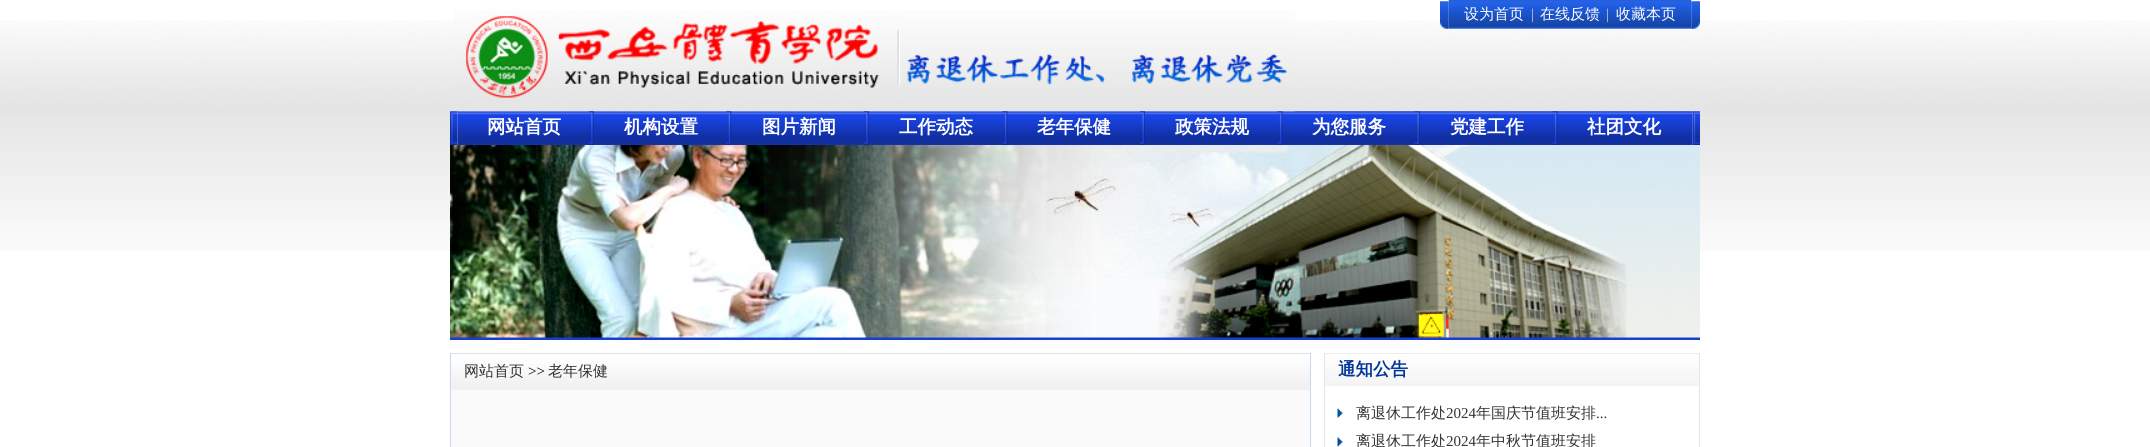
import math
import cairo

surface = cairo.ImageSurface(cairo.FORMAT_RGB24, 2150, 447)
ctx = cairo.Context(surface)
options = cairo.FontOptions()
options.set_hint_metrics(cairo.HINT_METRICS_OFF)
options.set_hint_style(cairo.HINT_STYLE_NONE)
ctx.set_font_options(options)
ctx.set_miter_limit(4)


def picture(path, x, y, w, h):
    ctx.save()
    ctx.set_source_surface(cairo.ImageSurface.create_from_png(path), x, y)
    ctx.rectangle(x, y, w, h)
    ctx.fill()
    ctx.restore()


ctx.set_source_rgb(1, 1, 1)
ctx.paint()
picture("img1.png", 0, 20, 2150, 231)
picture("img7.png", 457, 111, 1236, 34)
picture("img2.png", 454, 10, 841, 102)
picture("img4.png", 1448, 0, 244, 29)
picture("img3.png", 1440, 1, 9, 28)
ctx.select_font_face("WenQuanYi Zen Hei Medium")
ctx.set_font_size(15)
ctx.set_source_rgb(1, 1, 1)
ctx.move_to(1464, 19)
ctx.show_text("设为首页")
ctx.select_font_face("Liberation Serif")
ctx.set_source_rgb(0.8, 0.8, 0.8)
ctx.move_to(1531, 19)
ctx.show_text("|")
ctx.select_font_face("WenQuanYi Zen Hei Medium")
ctx.set_source_rgb(1, 1, 1)
ctx.move_to(1540, 19)
ctx.show_text("在线反馈")
ctx.select_font_face("Liberation Serif")
ctx.set_source_rgb(0.8, 0.8, 0.8)
ctx.move_to(1606, 19)
ctx.show_text("|")
ctx.select_font_face("WenQuanYi Zen Hei Medium")
ctx.set_source_rgb(1, 1, 1)
ctx.move_to(1616, 19)
ctx.show_text("收藏本页")
picture("img5.png", 1691, 1, 9, 28)
picture("img6.png", 450, 111, 8, 34)
ctx.select_font_face("WenQuanYi Zen Hei", cairo.FONT_SLANT_NORMAL, cairo.FONT_WEIGHT_BOLD)
ctx.set_font_size(18.5)
ctx.move_to(487, 133)
ctx.show_text("网站首页")
picture("img8.png", 588, 111, 6, 34)
ctx.move_to(624, 133)
ctx.show_text("机构设置")
picture("img9.png", 726, 111, 6, 34)
ctx.move_to(762, 133)
ctx.show_text("图片新闻")
picture("img10.png", 863, 111, 6, 34)
ctx.move_to(899, 133)
ctx.show_text("工作动态")
picture("img11.png", 1002, 111, 6, 34)
ctx.move_to(1037, 133)
ctx.show_text("老年保健")
picture("img12.png", 1140, 111, 5, 34)
ctx.move_to(1175, 133)
ctx.show_text("政策法规")
picture("img11.png", 1277, 111, 6, 34)
ctx.move_to(1312, 133)
ctx.show_text("为您服务")
picture("img13.png", 1415, 111, 5, 34)
ctx.move_to(1450, 133)
ctx.show_text("党建工作")
picture("img14.png", 1552, 111, 6, 34)
ctx.move_to(1587, 133)
ctx.show_text("社团文化")
picture("img15.png", 1692, 111, 8, 34)
picture("img16.png", 450, 145, 1250, 195)
ctx.set_source_rgb(0.98, 0.98, 0.98)
ctx.rectangle(450.5, 353.5, 860, 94)
ctx.fill_preserve()
ctx.set_source_rgb(0.78, 0.847, 0.918)
ctx.set_line_width(1)
ctx.stroke()
picture("img17.png", 451, 353, 859, 37)
ctx.select_font_face("WenQuanYi Zen Hei Medium")
ctx.set_font_size(15)
ctx.set_source_rgb(0.2, 0.2, 0.2)
ctx.move_to(464, 376)
ctx.show_text("网站首页")
ctx.select_font_face("Liberation Serif")
ctx.set_source_rgb(0, 0, 0)
ctx.move_to(528, 376)
ctx.show_text(">>")
ctx.select_font_face("WenQuanYi Zen Hei Medium")
ctx.set_source_rgb(0.2, 0.2, 0.2)
ctx.move_to(548, 376)
ctx.show_text("老年保健")
ctx.rectangle(1324.5, 353.5, 375, 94)
ctx.set_source_rgb(0.902, 0.902, 0.902)
ctx.stroke()
picture("img18.png", 1325, 353, 374, 33)
ctx.select_font_face("WenQuanYi Zen Hei", cairo.FONT_SLANT_NORMAL, cairo.FONT_WEIGHT_BOLD)
ctx.set_font_size(17.5)
ctx.set_source_rgb(0, 0.208, 0.6)
ctx.move_to(1338, 375)
ctx.show_text("通知公告")
picture("img19.png", 1337, 408, 6, 10)
ctx.select_font_face("WenQuanYi Zen Hei Medium")
ctx.set_font_size(15)
ctx.set_source_rgb(0.2, 0.2, 0.2)
ctx.move_to(1356, 418)
ctx.show_text("离退休工作处")
ctx.select_font_face("Liberation Serif")
ctx.move_to(1446, 418)
ctx.show_text("2024")
ctx.select_font_face("WenQuanYi Zen Hei Medium")
ctx.move_to(1476, 418)
ctx.show_text("年国庆节值班安排")
ctx.select_font_face("Liberation Serif")
ctx.move_to(1596, 418)
ctx.show_text("...")
picture("img20.png", 1337, 437, 6, 10)
ctx.select_font_face("WenQuanYi Zen Hei Medium")
ctx.move_to(1356, 446)
ctx.show_text("离退休工作处")
ctx.select_font_face("Liberation Serif")
ctx.move_to(1446, 446)
ctx.show_text("2024")
ctx.select_font_face("WenQuanYi Zen Hei Medium")
ctx.move_to(1476, 446)
ctx.show_text("年中秋节值班安排")
surface.write_to_png("page.png")
